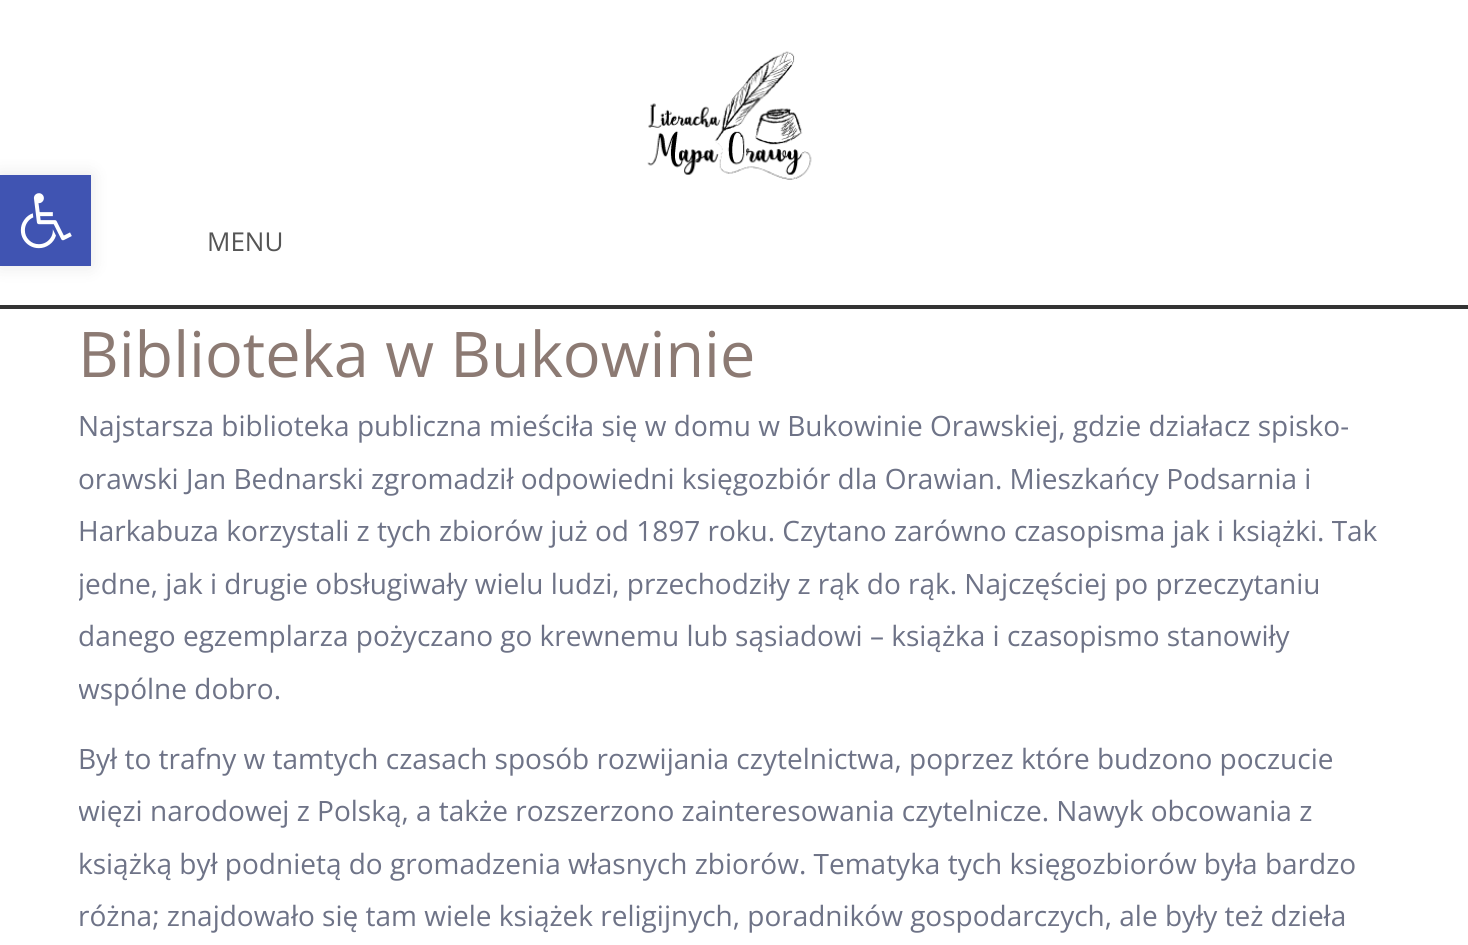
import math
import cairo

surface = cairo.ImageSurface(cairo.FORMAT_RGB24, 1468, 945)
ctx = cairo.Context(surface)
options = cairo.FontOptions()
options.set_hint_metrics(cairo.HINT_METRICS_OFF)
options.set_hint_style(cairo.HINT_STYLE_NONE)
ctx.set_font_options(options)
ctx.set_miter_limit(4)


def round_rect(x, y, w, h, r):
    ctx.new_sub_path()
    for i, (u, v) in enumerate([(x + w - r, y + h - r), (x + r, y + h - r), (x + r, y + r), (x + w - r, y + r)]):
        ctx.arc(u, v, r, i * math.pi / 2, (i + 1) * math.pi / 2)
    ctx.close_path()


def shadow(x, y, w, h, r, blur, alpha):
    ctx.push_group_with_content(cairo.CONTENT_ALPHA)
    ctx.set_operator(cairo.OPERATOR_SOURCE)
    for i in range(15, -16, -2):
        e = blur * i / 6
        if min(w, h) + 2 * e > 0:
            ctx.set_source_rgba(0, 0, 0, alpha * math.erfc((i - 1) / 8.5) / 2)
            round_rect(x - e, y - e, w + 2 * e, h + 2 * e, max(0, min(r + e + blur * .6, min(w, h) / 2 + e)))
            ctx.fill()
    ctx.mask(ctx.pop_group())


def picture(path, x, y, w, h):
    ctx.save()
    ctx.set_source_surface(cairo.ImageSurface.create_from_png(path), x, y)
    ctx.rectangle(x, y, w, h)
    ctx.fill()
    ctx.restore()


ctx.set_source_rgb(1, 1, 1)
ctx.paint()
ctx.set_source_rgb(0, 0, 0)
shadow(0, 175, 91, 91, 0, 9, 0.1)
ctx.set_source_rgb(0.251, 0.329, 0.698)
ctx.rectangle(0, 175, 91, 91)
ctx.fill()
picture("img1.png", 20, 193, 52, 56)
ctx.set_source_rgb(0.2, 0.2, 0.2)
ctx.rectangle(0, 305, 1468, 4)
ctx.fill()
picture("img2.png", 647, 51, 165, 129)
ctx.select_font_face("Open Sans")
ctx.set_font_size(26)
ctx.set_source_rgb(0.333, 0.333, 0.333)
ctx.move_to(207, 251)
ctx.show_text("MENU")
ctx.set_font_size(63)
ctx.set_source_rgb(0.549, 0.478, 0.451)
ctx.move_to(78, 377)
ctx.show_text("Biblioteka w Bukowinie")
ctx.set_font_size(28)
ctx.set_source_rgb(0.431, 0.451, 0.529)
ctx.move_to(78, 436)
ctx.show_text("Najstarsza biblioteka publiczna mieściła się w domu w Bukowinie Orawskiej, gdzie działacz spisko-")
ctx.move_to(78, 489)
ctx.show_text("orawski Jan Bednarski zgromadził odpowiedni księgozbiór dla Orawian. Mieszkańcy Podsarnia i")
ctx.move_to(78, 541)
ctx.show_text("Harkabuza korzystali z tych zbiorów już od 1897 roku. Czytano zarówno czasopisma jak i książki. Tak")
ctx.save()
ctx.rectangle(79, 399, 1312, 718)
ctx.clip()
ctx.move_to(78, 594)
ctx.show_text("jedne, jak i drugie obsługiwały wielu ludzi, przechodziły z rąk do rąk. Najczęściej po przeczytaniu")
ctx.restore()
ctx.move_to(78, 646)
ctx.show_text("danego egzemplarza pożyczano go krewnemu lub sąsiadowi – książka i czasopismo stanowiły")
ctx.save()
ctx.rectangle(79, 399, 1312, 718)
ctx.clip()
ctx.move_to(78, 699)
ctx.show_text("wspólne dobro.")
ctx.restore()
ctx.move_to(78, 769)
ctx.show_text("Był to trafny w tamtych czasach sposób rozwijania czytelnictwa, poprzez które budzono poczucie")
ctx.save()
ctx.rectangle(79, 399, 1312, 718)
ctx.clip()
ctx.move_to(78, 821)
ctx.show_text("więzi narodowej z Polską, a także rozszerzono zainteresowania czytelnicze. Nawyk obcowania z")
ctx.restore()
ctx.move_to(78, 874)
ctx.show_text("książką był podnietą do gromadzenia własnych zbiorów. Tematyka tych księgozbiorów była bardzo")
ctx.move_to(78, 926)
ctx.show_text("różna; znajdowało się tam wiele książek religijnych, poradników gospodarczych, ale były też dzieła")
surface.write_to_png("page.png")
